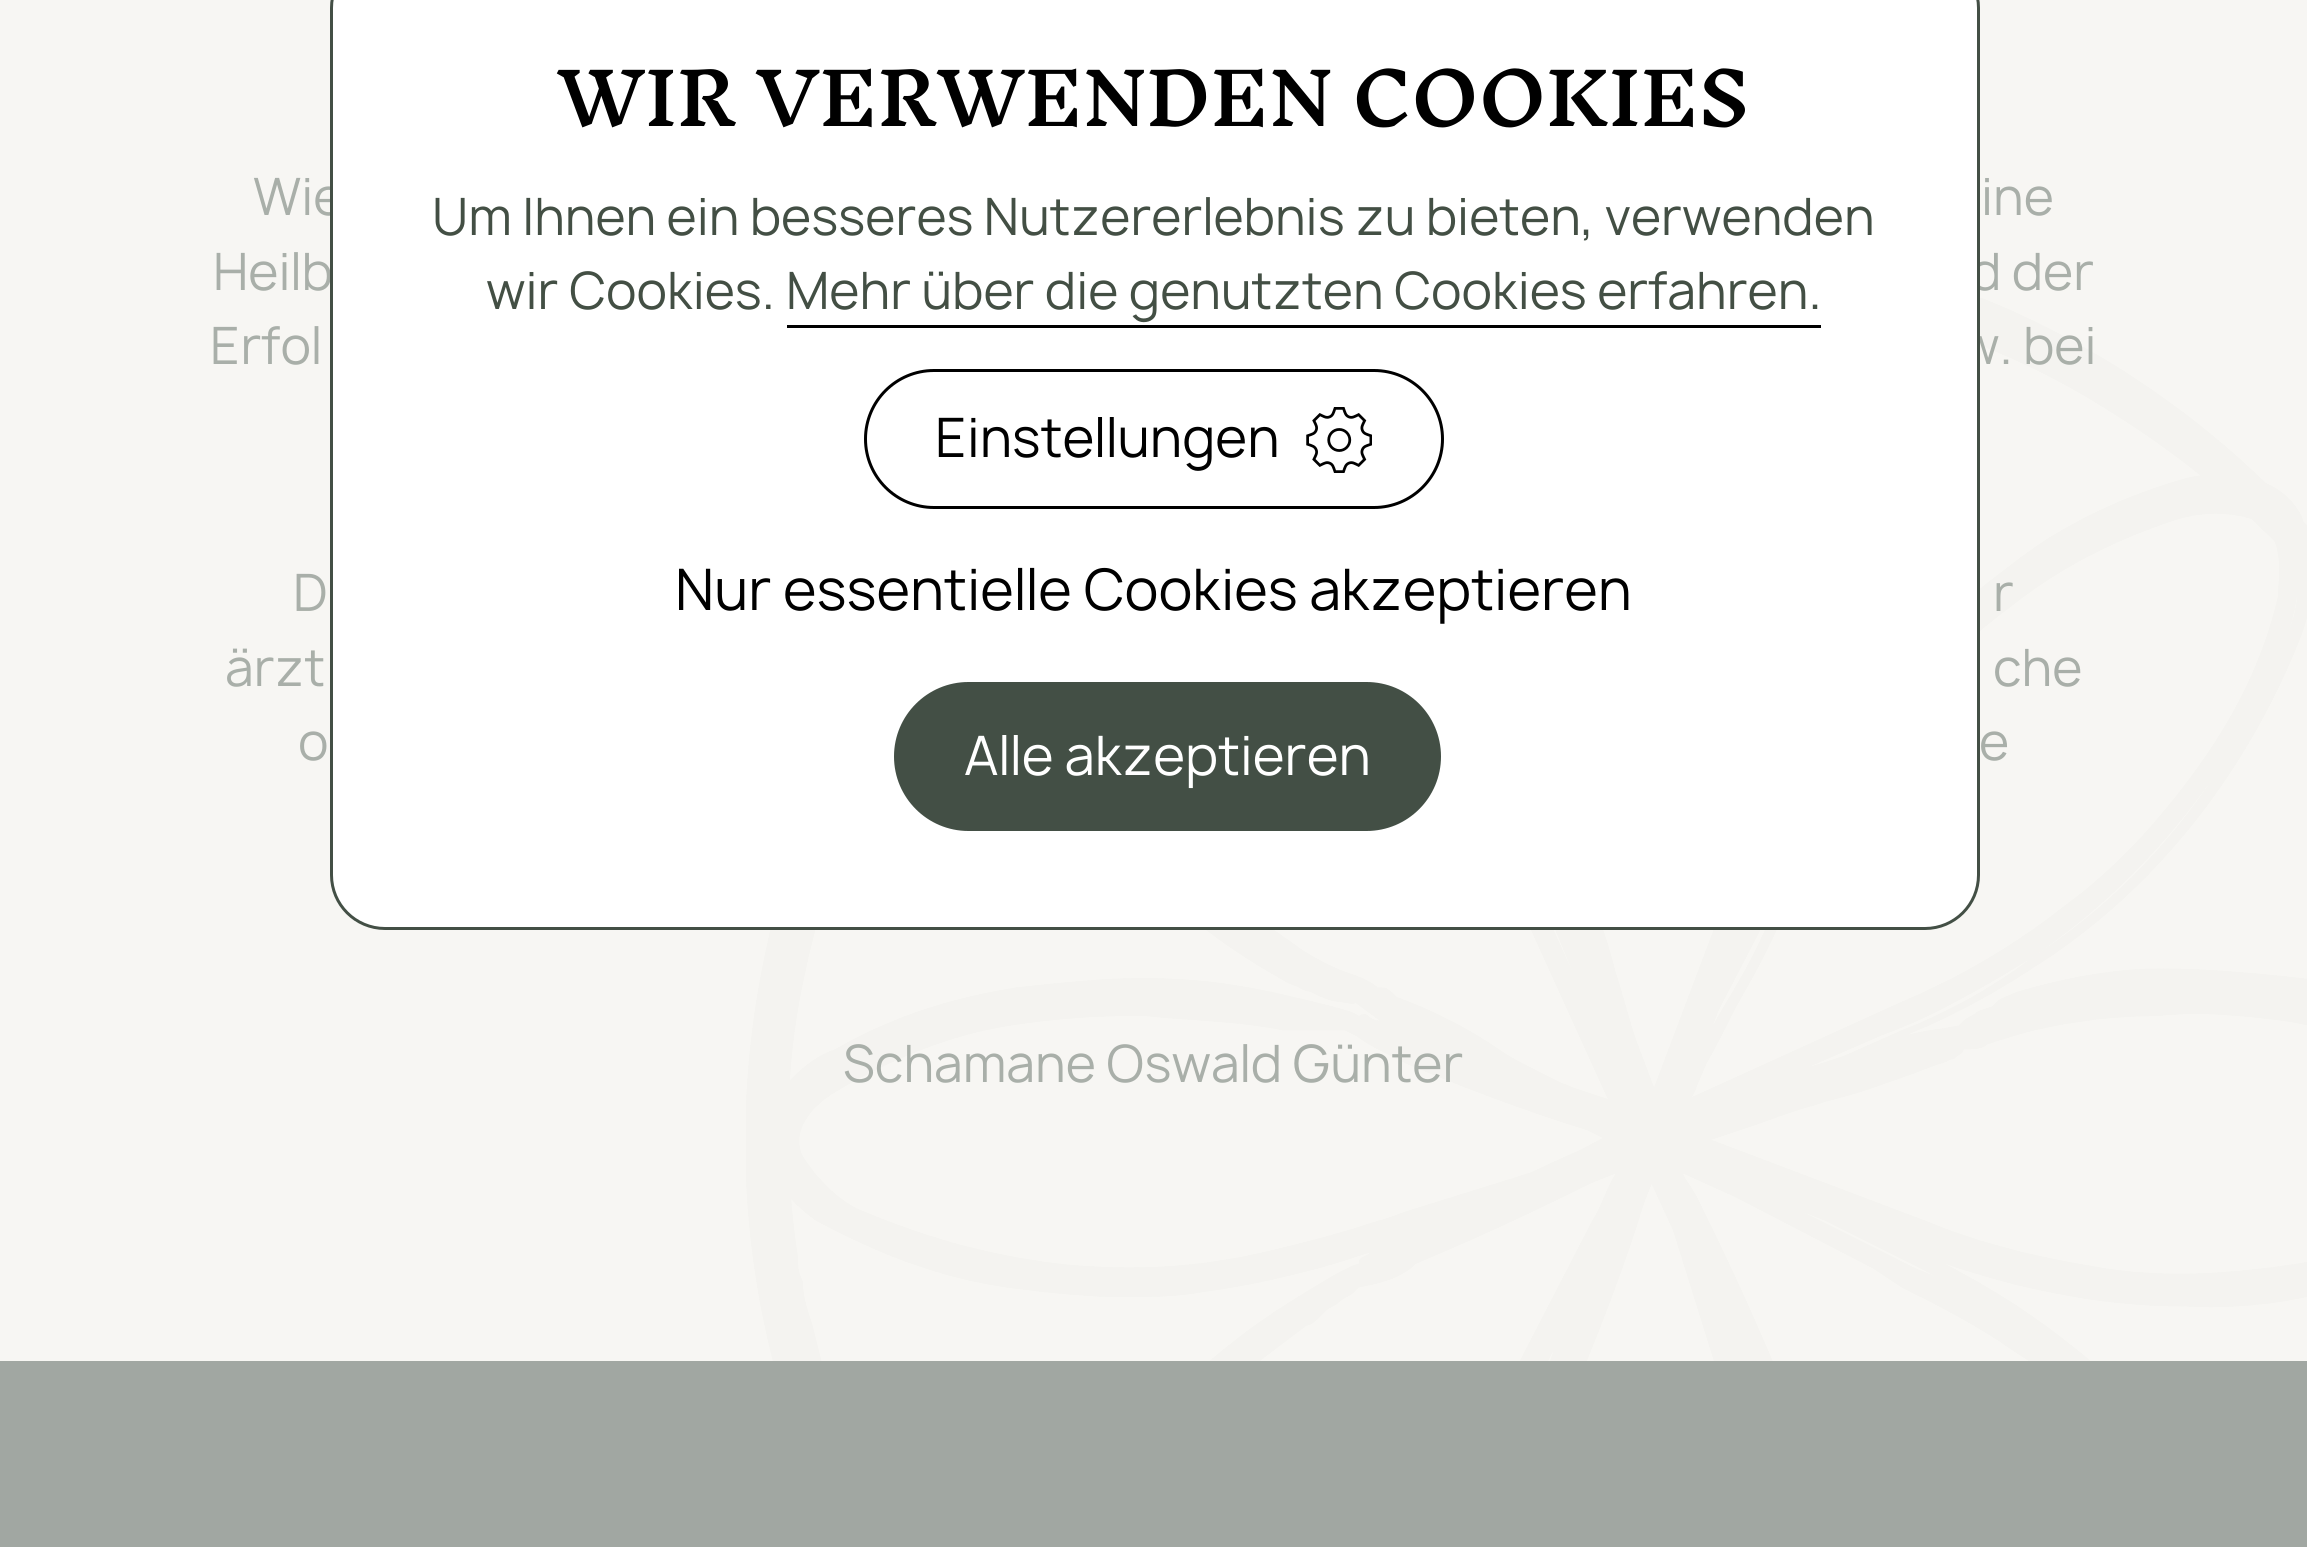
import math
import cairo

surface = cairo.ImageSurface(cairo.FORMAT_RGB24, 2307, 1547)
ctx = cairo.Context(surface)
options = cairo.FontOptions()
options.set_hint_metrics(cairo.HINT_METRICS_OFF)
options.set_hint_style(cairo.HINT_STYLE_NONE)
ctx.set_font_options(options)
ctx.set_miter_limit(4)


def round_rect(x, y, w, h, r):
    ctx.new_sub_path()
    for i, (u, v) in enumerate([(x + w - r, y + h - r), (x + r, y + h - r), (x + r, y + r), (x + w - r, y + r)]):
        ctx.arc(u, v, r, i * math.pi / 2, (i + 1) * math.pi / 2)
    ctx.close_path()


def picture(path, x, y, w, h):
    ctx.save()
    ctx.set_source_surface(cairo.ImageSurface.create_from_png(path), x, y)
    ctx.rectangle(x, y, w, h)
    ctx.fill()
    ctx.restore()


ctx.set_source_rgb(0.965, 0.961, 0.953)
ctx.paint()
ctx.select_font_face("Manrope")
ctx.set_font_size(49.5)
ctx.set_source_rgb(0.663, 0.686, 0.663)
ctx.move_to(253, 215)
ctx.show_text("Wie")
ctx.move_to(213, 290)
ctx.show_text("Heilb")
ctx.move_to(1970, 290)
ctx.show_text("d der")
picture("img2.png", 746, 298, 1561, 1063)
ctx.move_to(1960, 364)
ctx.show_text("w. bei")
ctx.set_source_rgb(1, 1, 1)
round_rect(331.5, -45.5, 1647, 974, 53.5)
ctx.fill_preserve()
ctx.set_source_rgb(0.263, 0.31, 0.271)
ctx.set_line_width(3)
ctx.stroke()
ctx.select_font_face("Inknut Antiqua SemiBold")
ctx.set_font_size(71.5)
ctx.set_source_rgb(0, 0, 0)
ctx.move_to(557, 126)
ctx.show_text("WIR VERWENDEN COOKIES")
ctx.select_font_face("Manrope")
ctx.set_font_size(49.5)
ctx.set_source_rgb(0.263, 0.31, 0.267)
ctx.move_to(432, 235)
ctx.show_text("Um Ihnen ein besseres Nutzererlebnis zu bieten, verwenden")
ctx.move_to(486, 309)
ctx.show_text("wir Cookies.")
ctx.move_to(786, 309)
ctx.show_text("Mehr über die genutzten Cookies erfahren.")
ctx.set_source_rgb(0, 0, 0)
ctx.rectangle(787, 325, 1034, 3)
ctx.fill()
round_rect(865.5, 370.5, 577, 137, 68.5)
ctx.stroke()
ctx.set_font_size(52.25)
ctx.move_to(935, 457)
ctx.show_text("Einstellungen")
picture("img1.png", 1306, 407, 66, 66)
ctx.set_font_size(55)
ctx.move_to(675, 610)
ctx.show_text("Nur essentielle Cookies akzeptieren")
ctx.set_source_rgb(0.263, 0.31, 0.271)
round_rect(895.5, 683.5, 544, 146, 73)
ctx.fill_preserve()
ctx.stroke()
ctx.set_font_size(52.25)
ctx.set_source_rgb(1, 1, 1)
ctx.move_to(964, 775)
ctx.show_text("Alle akzeptieren")
ctx.set_font_size(49.5)
ctx.set_source_rgb(0.663, 0.686, 0.663)
ctx.move_to(1981, 215)
ctx.show_text("ine")
ctx.move_to(210, 364)
ctx.show_text("Erfol")
ctx.move_to(293, 611)
ctx.show_text("D")
ctx.move_to(1993, 611)
ctx.show_text("r")
ctx.move_to(225, 686)
ctx.show_text("ärzt")
ctx.move_to(1993, 686)
ctx.show_text("che")
ctx.move_to(298, 760)
ctx.show_text("o")
ctx.move_to(1979, 760)
ctx.show_text("e")
ctx.move_to(843, 1082)
ctx.show_text("Schamane Oswald Günter")
ctx.set_source_rgb(0.631, 0.655, 0.635)
ctx.rectangle(0, 1361, 2307, 186)
ctx.fill()
surface.write_to_png("page.png")
